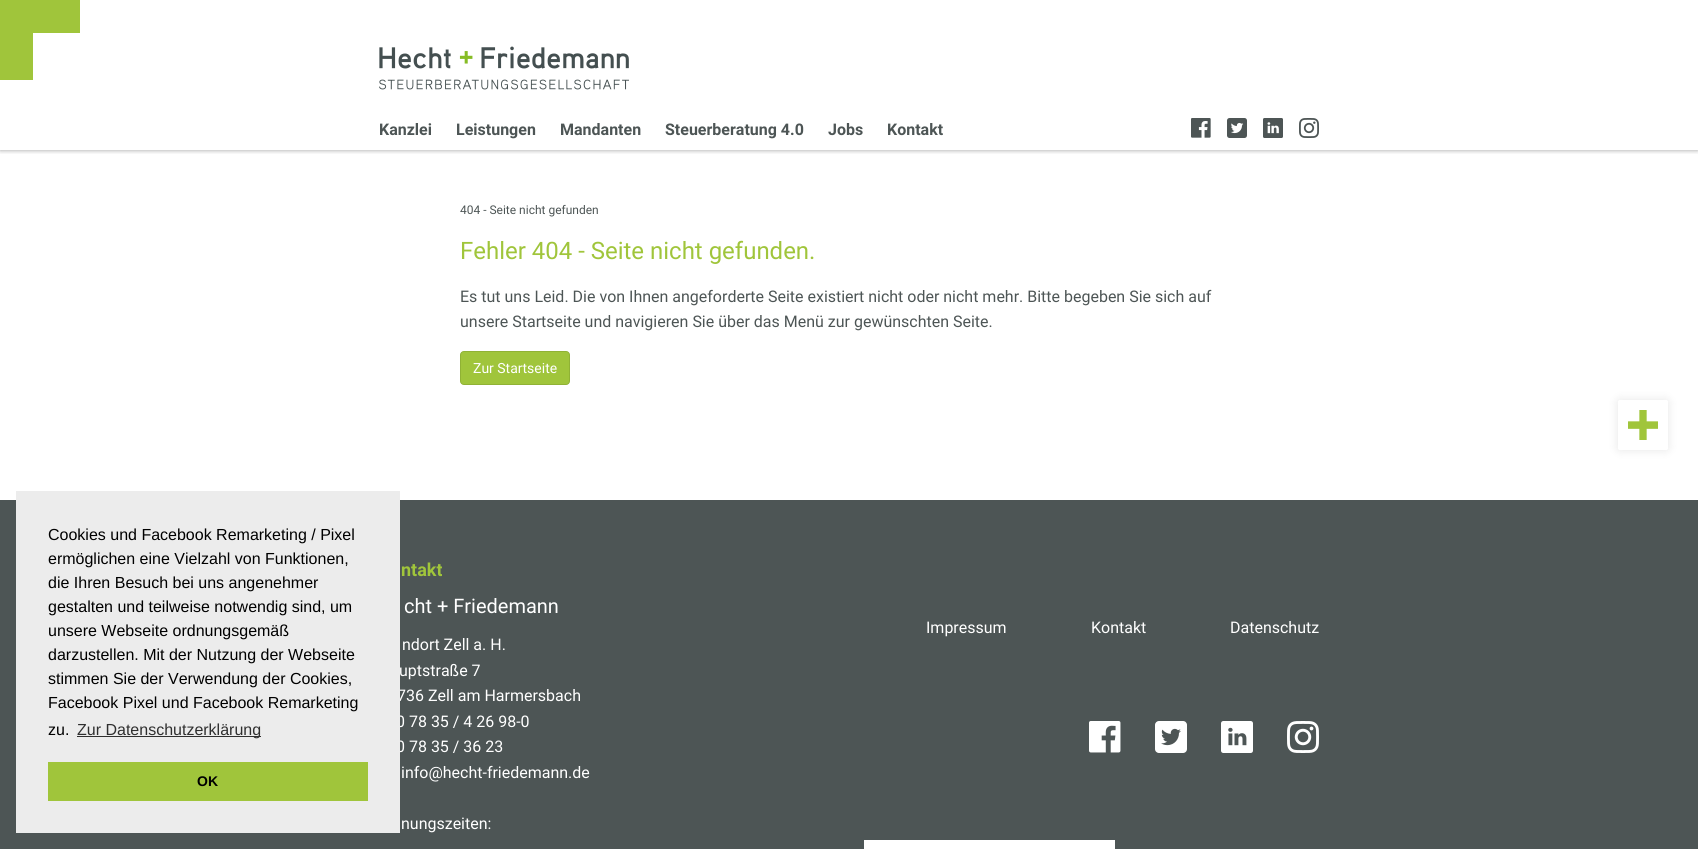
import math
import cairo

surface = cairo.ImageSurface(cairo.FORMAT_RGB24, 1698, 849)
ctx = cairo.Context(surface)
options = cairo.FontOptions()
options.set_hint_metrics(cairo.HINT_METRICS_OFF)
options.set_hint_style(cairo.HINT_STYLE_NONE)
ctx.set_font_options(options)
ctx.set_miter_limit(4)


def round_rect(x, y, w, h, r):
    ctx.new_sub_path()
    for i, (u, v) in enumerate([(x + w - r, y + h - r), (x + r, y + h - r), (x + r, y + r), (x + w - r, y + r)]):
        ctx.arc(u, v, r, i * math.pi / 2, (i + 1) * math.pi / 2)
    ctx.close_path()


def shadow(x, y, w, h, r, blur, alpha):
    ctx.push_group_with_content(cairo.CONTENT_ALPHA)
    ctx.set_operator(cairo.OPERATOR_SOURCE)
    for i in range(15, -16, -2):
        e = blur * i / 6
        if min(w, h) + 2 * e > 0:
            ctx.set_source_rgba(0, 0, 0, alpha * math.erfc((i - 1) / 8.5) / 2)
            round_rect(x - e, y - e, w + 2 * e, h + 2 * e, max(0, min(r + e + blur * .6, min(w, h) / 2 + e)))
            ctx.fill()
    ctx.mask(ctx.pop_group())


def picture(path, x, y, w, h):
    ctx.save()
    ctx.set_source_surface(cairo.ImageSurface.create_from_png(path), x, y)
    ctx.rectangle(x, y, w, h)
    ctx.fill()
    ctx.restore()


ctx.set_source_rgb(1, 1, 1)
ctx.paint()
ctx.save()
ctx.rectangle(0, 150, 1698, 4)
ctx.clip()
ctx.set_source_rgb(0, 0, 0)
shadow(0, 0, 1698, 150, 0, 2.5, 0.4)
ctx.restore()
ctx.set_source_rgb(0.627, 0.773, 0.231)
ctx.rectangle(0, 0, 33, 80)
ctx.fill()
ctx.rectangle(33, 0, 47, 33)
ctx.fill()
picture("img1.png", 379, 46, 250, 44)
ctx.select_font_face("Roboto", cairo.FONT_SLANT_NORMAL, cairo.FONT_WEIGHT_BOLD)
ctx.set_font_size(16)
ctx.set_source_rgb(0.302, 0.333, 0.333)
ctx.move_to(379, 135)
ctx.show_text("Kanzlei")
ctx.move_to(456, 135)
ctx.show_text("Leistungen")
ctx.move_to(560, 135)
ctx.show_text("Mandanten")
ctx.move_to(665, 135)
ctx.show_text("Steuerberatung 4.0")
ctx.move_to(828, 135)
ctx.show_text("Jobs")
ctx.move_to(887, 135)
ctx.show_text("Kontakt")
picture("img2.png", 1191, 118, 20, 20)
picture("img3.png", 1227, 118, 20, 20)
picture("img4.png", 1263, 118, 20, 20)
picture("img5.png", 1299, 118, 20, 20)
ctx.select_font_face("Roboto")
ctx.set_font_size(12)
ctx.move_to(460, 214)
ctx.show_text("404 - Seite nicht gefunden")
ctx.set_font_size(24)
ctx.set_source_rgb(0.627, 0.773, 0.231)
ctx.move_to(460, 259)
ctx.show_text("Fehler 404 - Seite nicht gefunden.")
ctx.set_font_size(16)
ctx.set_source_rgb(0.302, 0.333, 0.333)
ctx.move_to(460, 302)
ctx.show_text("Es tut uns Leid. Die von Ihnen angeforderte Seite existiert nicht oder nicht mehr. Bitte begeben Sie sich auf")
ctx.move_to(460, 327)
ctx.show_text("unsere Startseite und navigieren Sie über das Menü zur gewünschten Seite.")
ctx.set_source_rgb(0.627, 0.773, 0.231)
round_rect(460.5, 351.5, 109, 33, 3.5)
ctx.fill_preserve()
ctx.set_source_rgb(0.565, 0.698, 0.208)
ctx.set_line_width(1)
ctx.stroke()
ctx.set_font_size(14)
ctx.set_source_rgb(1, 1, 1)
ctx.move_to(473, 373)
ctx.show_text("Zur Startseite")
ctx.save()
ctx.set_fill_rule(cairo.FILL_RULE_EVEN_ODD)
ctx.new_path()
ctx.move_to(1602, 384)
ctx.line_to(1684, 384)
ctx.line_to(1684, 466)
ctx.line_to(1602, 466)
ctx.close_path()
ctx.move_to(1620, 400)
ctx.line_to(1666, 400)
ctx.curve_to(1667, 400, 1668, 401, 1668, 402)
ctx.line_to(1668, 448)
ctx.curve_to(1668, 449, 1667, 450, 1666, 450)
ctx.line_to(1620, 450)
ctx.curve_to(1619, 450, 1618, 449, 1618, 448)
ctx.line_to(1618, 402)
ctx.curve_to(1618, 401, 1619, 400, 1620, 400)
ctx.close_path()
ctx.clip()
ctx.set_source_rgb(0, 0, 0)
shadow(1618, 400, 50, 50, 2, 5, 0.1)
ctx.restore()
picture("img6.png", 1628, 410, 30, 30)
ctx.set_source_rgb(0.302, 0.333, 0.333)
ctx.rectangle(0, 500, 1698, 349)
ctx.fill()
ctx.set_font_size(16)
ctx.set_source_rgb(1, 1, 1)
ctx.move_to(397, 701)
ctx.show_text("736 Zell am Harmersbach")
ctx.move_to(396, 727)
ctx.show_text("0 78 35 / 4 26 98-0")
ctx.move_to(396, 752)
ctx.show_text("0 78 35 / 36 23")
ctx.set_source_rgb(0.922, 0.922, 0.922)
ctx.rectangle(16, 491, 384, 342)
ctx.fill()
ctx.select_font_face("Liberation Sans")
ctx.set_source_rgb(0, 0, 0)
ctx.move_to(48, 540)
ctx.show_text("Cookies und Facebook Remarketing / Pixel")
ctx.move_to(48, 564)
ctx.show_text("ermöglichen eine Vielzahl von Funktionen,")
ctx.move_to(48, 588)
ctx.show_text("die Ihren Besuch bei uns angenehmer")
ctx.move_to(48, 612)
ctx.show_text("gestalten und teilweise notwendig sind, um")
ctx.move_to(48, 636)
ctx.show_text("unsere Webseite ordnungsgemäß")
ctx.move_to(48, 660)
ctx.show_text("darzustellen. Mit der Nutzung der Webseite")
ctx.move_to(48, 684)
ctx.show_text("stimmen Sie der Verwendung der Cookies,")
ctx.move_to(48, 708)
ctx.show_text("Facebook Pixel und Facebook Remarketing")
ctx.move_to(48, 735)
ctx.show_text("zu.")
ctx.set_source_rgb(0.184, 0.184, 0.184)
ctx.rectangle(77, 736, 184, 1)
ctx.fill()
ctx.move_to(77, 735)
ctx.show_text("Zur Datenschutzerklärung")
ctx.set_source_rgb(0.627, 0.773, 0.231)
ctx.rectangle(48, 762, 320, 39)
ctx.fill()
ctx.select_font_face("Liberation Sans", cairo.FONT_SLANT_NORMAL, cairo.FONT_WEIGHT_BOLD)
ctx.set_font_size(14)
ctx.set_source_rgb(0, 0, 0)
ctx.move_to(197, 786)
ctx.show_text("OK")
ctx.select_font_face("Roboto", cairo.FONT_SLANT_NORMAL, cairo.FONT_WEIGHT_BOLD)
ctx.set_font_size(18)
ctx.set_source_rgb(0.627, 0.773, 0.231)
ctx.move_to(401, 576)
ctx.show_text("ntakt")
ctx.select_font_face("Roboto")
ctx.set_font_size(20)
ctx.set_source_rgb(1, 1, 1)
ctx.move_to(404, 613)
ctx.show_text("cht + Friedemann")
ctx.set_font_size(16)
ctx.move_to(402, 650)
ctx.show_text("ndort Zell a. H.")
ctx.move_to(399, 676)
ctx.show_text("uptstraße 7")
ctx.move_to(401, 778)
ctx.show_text("info@hecht-friedemann.de")
ctx.move_to(401, 829)
ctx.show_text("nungszeiten:")
ctx.move_to(926, 633)
ctx.show_text("Impressum")
ctx.move_to(1091, 633)
ctx.show_text("Kontakt")
ctx.move_to(1230, 633)
ctx.show_text("Datenschutz")
picture("img7.png", 1089, 721, 32, 32)
picture("img8.png", 1155, 721, 32, 32)
picture("img9.png", 1221, 721, 32, 32)
picture("img10.png", 1287, 721, 32, 32)
ctx.rectangle(864, 840, 251, 9)
ctx.fill()
surface.write_to_png("page.png")
